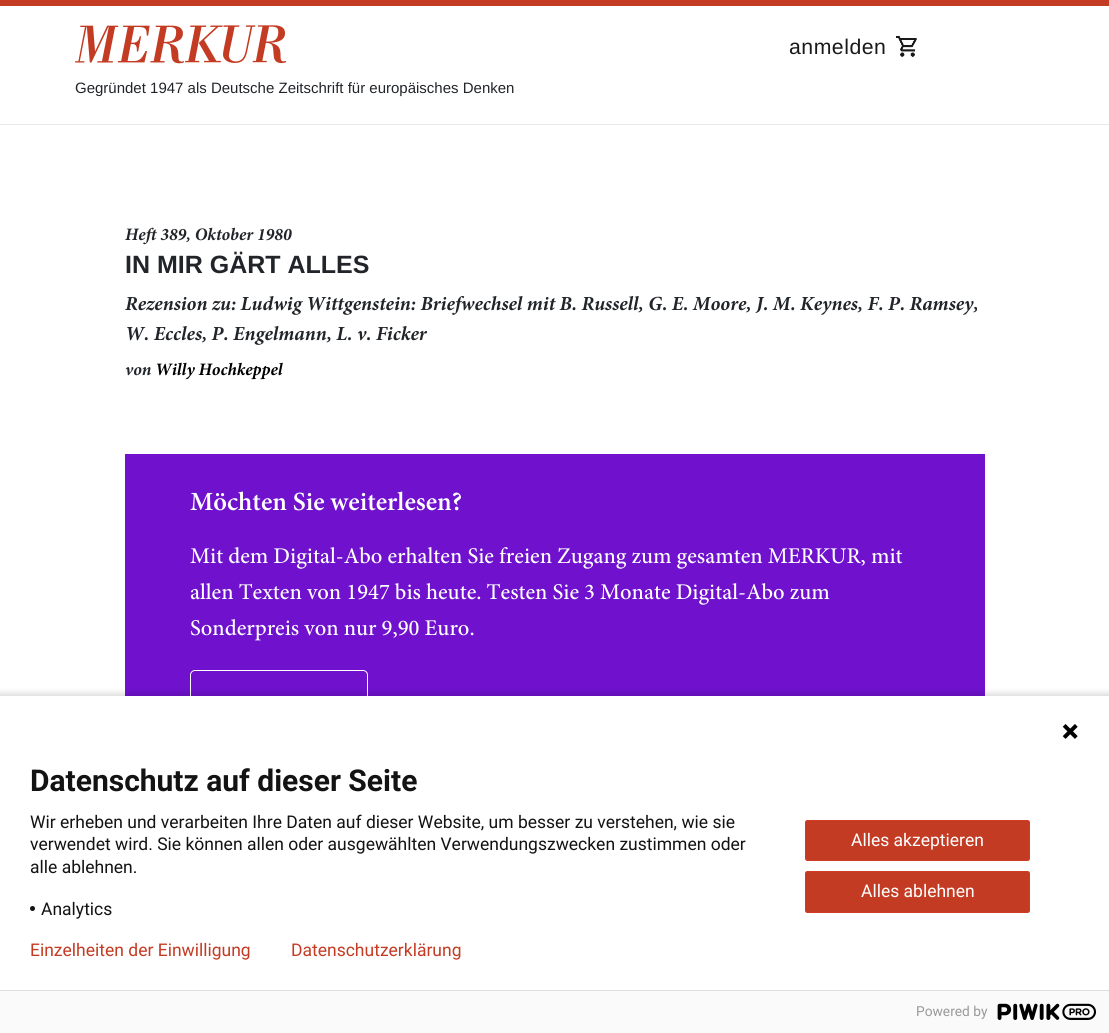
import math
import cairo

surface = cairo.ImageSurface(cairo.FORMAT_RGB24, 1109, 1033)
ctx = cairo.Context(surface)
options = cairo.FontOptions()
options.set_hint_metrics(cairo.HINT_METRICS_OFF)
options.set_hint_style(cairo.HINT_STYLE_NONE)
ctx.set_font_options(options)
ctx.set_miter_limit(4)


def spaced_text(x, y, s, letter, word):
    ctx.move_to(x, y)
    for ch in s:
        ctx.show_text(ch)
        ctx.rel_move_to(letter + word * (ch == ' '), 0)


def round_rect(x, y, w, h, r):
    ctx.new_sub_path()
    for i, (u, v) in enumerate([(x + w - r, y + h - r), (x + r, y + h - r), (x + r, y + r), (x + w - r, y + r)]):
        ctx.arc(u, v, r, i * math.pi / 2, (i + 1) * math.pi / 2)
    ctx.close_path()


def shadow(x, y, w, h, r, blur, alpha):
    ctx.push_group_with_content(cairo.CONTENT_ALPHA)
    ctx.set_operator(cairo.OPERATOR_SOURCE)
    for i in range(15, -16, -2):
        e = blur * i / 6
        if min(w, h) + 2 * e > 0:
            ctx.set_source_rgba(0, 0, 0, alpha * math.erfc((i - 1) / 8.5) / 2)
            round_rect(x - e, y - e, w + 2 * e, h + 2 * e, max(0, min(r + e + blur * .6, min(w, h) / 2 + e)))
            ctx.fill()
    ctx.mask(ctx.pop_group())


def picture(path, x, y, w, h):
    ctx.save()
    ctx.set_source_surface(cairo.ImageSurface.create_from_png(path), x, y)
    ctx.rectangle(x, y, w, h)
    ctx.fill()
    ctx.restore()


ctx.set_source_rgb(1, 1, 1)
ctx.paint()
ctx.set_source_rgb(0.769, 0.231, 0.137)
ctx.rectangle(0, 0, 1109, 6)
ctx.fill()
ctx.select_font_face("Liberation Sans")
ctx.set_font_size(21.25)
ctx.set_source_rgb(0.098, 0.098, 0.098)
spaced_text(789, 54, "anmelden", 0.5, 0)
picture("img1.png", 896, 36, 21, 21)
picture("img2.png", 75, 25, 211, 39)
ctx.set_font_size(15)
ctx.set_source_rgb(0.129, 0.145, 0.161)
ctx.move_to(75, 93)
ctx.show_text("Gegründet 1947 als Deutsche Zeitschrift für europäisches Denken")
ctx.set_source_rgb(0.91, 0.91, 0.91)
ctx.rectangle(0, 124, 1109, 1)
ctx.fill()
ctx.select_font_face("Minion", cairo.FONT_SLANT_ITALIC, cairo.FONT_WEIGHT_BOLD)
ctx.set_font_size(17.5)
ctx.set_source_rgb(0.129, 0.145, 0.161)
ctx.move_to(125, 240)
ctx.show_text("Heft 389, Oktober 1980")
ctx.select_font_face("Liberation Sans", cairo.FONT_SLANT_NORMAL, cairo.FONT_WEIGHT_BOLD)
ctx.set_font_size(25)
ctx.move_to(125, 273)
ctx.show_text("IN MIR GÄRT ALLES")
ctx.select_font_face("Minion", cairo.FONT_SLANT_ITALIC, cairo.FONT_WEIGHT_BOLD)
ctx.set_font_size(20)
ctx.move_to(125, 310)
ctx.show_text("Rezension zu: Ludwig Wittgenstein: Briefwechsel mit B. Russell, G. E. Moore, J. M. Keynes, F. P. Ramsey,")
ctx.move_to(125, 340)
ctx.show_text("W. Eccles, P. Engelmann, L. v. Ficker")
ctx.set_font_size(17.5)
ctx.move_to(125, 375)
ctx.show_text("von")
ctx.set_source_rgb(0, 0, 0)
ctx.move_to(155, 375)
ctx.show_text("Willy Hochkeppel")
ctx.set_source_rgb(0.435, 0.067, 0.804)
ctx.rectangle(125, 454, 860, 242)
ctx.fill()
ctx.select_font_face("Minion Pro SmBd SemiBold")
ctx.set_font_size(26.25)
ctx.set_source_rgb(1, 1, 1)
ctx.move_to(190, 510)
ctx.show_text("Möchten Sie weiterlesen?")
ctx.select_font_face("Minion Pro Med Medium")
ctx.set_font_size(22.5)
ctx.move_to(190, 563)
ctx.show_text("Mit dem Digital-Abo erhalten Sie freien Zugang zum gesamten MERKUR, mit")
ctx.move_to(190, 599)
ctx.show_text("allen Texten von 1947 bis heute. Testen Sie 3 Monate Digital-Abo zum")
ctx.move_to(190, 635)
ctx.show_text("Sonderpreis von nur 9,90 Euro.")
round_rect(190.5, 670.5, 177, 53, 4.5)
ctx.set_line_width(1)
ctx.stroke()
ctx.set_source_rgb(0, 0, 0)
shadow(-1, 693, 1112, 340, 0, 3, 0.14)
ctx.set_source_rgb(1, 1, 1)
ctx.rectangle(0, 696, 1109, 294)
ctx.fill()
picture("img3.png", 1062, 724, 16, 15)
ctx.select_font_face("Roboto", cairo.FONT_SLANT_NORMAL, cairo.FONT_WEIGHT_BOLD)
ctx.set_font_size(30)
ctx.set_source_rgb(0.075, 0.075, 0.075)
ctx.move_to(30, 791)
ctx.show_text("Datenschutz auf dieser Seite")
ctx.select_font_face("Roboto")
ctx.set_font_size(17.5)
ctx.move_to(30, 828)
ctx.show_text("Wir erheben und verarbeiten Ihre Daten auf dieser Website, um besser zu verstehen, wie sie")
ctx.move_to(30, 850)
ctx.show_text("verwendet wird. Sie können allen oder ausgewählten Verwendungszwecken zustimmen oder")
ctx.move_to(30, 873)
ctx.show_text("alle ablehnen.")
ctx.new_path()
ctx.arc(32.5, 908.5, 2.5, 0, 2 * math.pi)
ctx.fill()
ctx.move_to(41, 915)
ctx.show_text("Analytics")
ctx.set_source_rgb(0.769, 0.231, 0.137)
round_rect(805.5, 820.5, 224, 40, 2)
ctx.fill_preserve()
ctx.set_source_rgb(0.812, 0.231, 0.141)
ctx.stroke()
ctx.set_source_rgb(1, 1, 1)
ctx.move_to(851, 846)
ctx.show_text("Alles akzeptieren")
ctx.set_source_rgb(0.769, 0.231, 0.137)
round_rect(805.5, 871.5, 224, 41, 2)
ctx.fill_preserve()
ctx.set_source_rgb(0.812, 0.231, 0.141)
ctx.stroke()
ctx.set_source_rgb(1, 1, 1)
ctx.move_to(861, 897)
ctx.show_text("Alles ablehnen")
ctx.set_source_rgb(0.769, 0.231, 0.137)
ctx.move_to(30, 956)
ctx.show_text("Einzelheiten der Einwilligung")
ctx.move_to(291, 956)
ctx.show_text("Datenschutzerklärung")
ctx.set_source_rgb(0.98, 0.98, 0.98)
ctx.rectangle(0, 991, 1109, 42)
ctx.fill()
ctx.set_source_rgb(0.867, 0.867, 0.867)
ctx.rectangle(0, 990, 1109, 1)
ctx.fill()
ctx.set_font_size(13.75)
ctx.set_source_rgb(0.6, 0.6, 0.6)
ctx.move_to(916, 1016)
ctx.show_text("Powered by")
picture("img4.png", 997, 1003, 99, 17)
surface.write_to_png("page.png")
